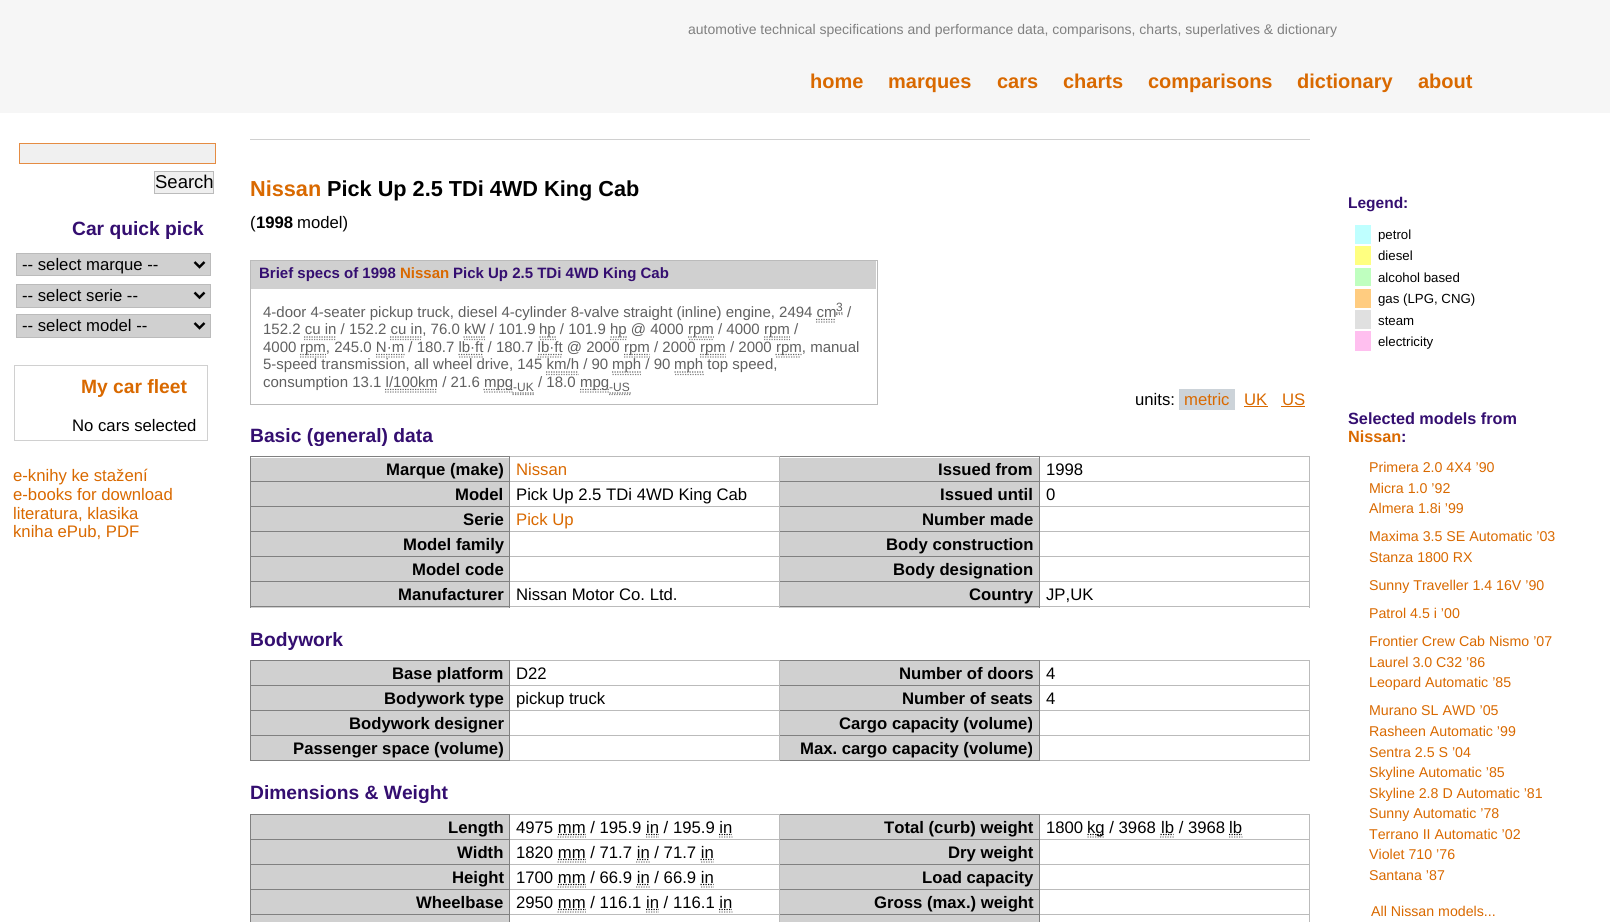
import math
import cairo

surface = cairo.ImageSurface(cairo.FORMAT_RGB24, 1610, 922)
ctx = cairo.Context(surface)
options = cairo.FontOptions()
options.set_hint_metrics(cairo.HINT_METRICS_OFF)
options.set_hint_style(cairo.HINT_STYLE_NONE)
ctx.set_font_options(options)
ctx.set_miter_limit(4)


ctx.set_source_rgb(1, 1, 1)
ctx.paint()
ctx.set_source_rgb(0.961, 0.961, 0.961)
ctx.rectangle(0, 0, 1610, 113)
ctx.fill()
ctx.select_font_face("Liberation Sans")
ctx.set_font_size(14)
ctx.set_source_rgb(0.502, 0.502, 0.502)
ctx.move_to(688, 34)
ctx.show_text("automotive technical specifications and performance data, comparisons, charts, superlatives & dictionary")
ctx.select_font_face("Liberation Sans", cairo.FONT_SLANT_NORMAL, cairo.FONT_WEIGHT_BOLD)
ctx.set_font_size(20)
ctx.set_source_rgb(0.851, 0.412, 0)
ctx.move_to(810, 88)
ctx.show_text("home")
ctx.move_to(888, 88)
ctx.show_text("marques")
ctx.move_to(997, 88)
ctx.show_text("cars")
ctx.move_to(1063, 88)
ctx.show_text("charts")
ctx.move_to(1148, 88)
ctx.show_text("comparisons")
ctx.move_to(1297, 88)
ctx.show_text("dictionary")
ctx.move_to(1418, 88)
ctx.show_text("about")
ctx.set_source_rgb(0.941, 0.941, 0.941)
ctx.rectangle(19.5, 143.5, 196, 20)
ctx.fill_preserve()
ctx.set_source_rgb(0.898, 0.549, 0.263)
ctx.set_line_width(1)
ctx.stroke()
ctx.set_source_rgb(0.937, 0.937, 0.937)
ctx.rectangle(154.5, 171.5, 59, 22)
ctx.fill_preserve()
ctx.set_source_rgb(0.733, 0.733, 0.733)
ctx.stroke()
ctx.select_font_face("Liberation Sans")
ctx.set_font_size(18.5)
ctx.set_source_rgb(0, 0, 0)
ctx.move_to(155, 188)
ctx.show_text("Search")
ctx.select_font_face("Liberation Sans", cairo.FONT_SLANT_NORMAL, cairo.FONT_WEIGHT_BOLD)
ctx.set_font_size(19.25)
ctx.set_source_rgb(0.204, 0.055, 0.439)
ctx.move_to(72, 235)
ctx.show_text("Car quick pick")
ctx.set_source_rgb(0.816, 0.816, 0.816)
ctx.rectangle(16.5, 253.5, 194, 22)
ctx.fill_preserve()
ctx.set_source_rgb(0.733, 0.733, 0.733)
ctx.stroke()
ctx.new_path()
ctx.move_to(194.5, 262)
ctx.line_to(199.5, 267)
ctx.line_to(204.5, 262)
ctx.set_source_rgb(0, 0, 0)
ctx.set_line_width(2.5)
ctx.stroke()
ctx.select_font_face("Liberation Sans")
ctx.set_font_size(16.7)
ctx.move_to(22, 270)
ctx.show_text("-- select marque --")
ctx.set_source_rgb(0.816, 0.816, 0.816)
ctx.rectangle(16.5, 284.5, 194, 23)
ctx.fill_preserve()
ctx.set_source_rgb(0.733, 0.733, 0.733)
ctx.set_line_width(1)
ctx.stroke()
ctx.new_path()
ctx.move_to(194.5, 292.5)
ctx.line_to(199.5, 297.5)
ctx.line_to(204.5, 292.5)
ctx.set_source_rgb(0, 0, 0)
ctx.set_line_width(2.5)
ctx.stroke()
ctx.move_to(22, 301)
ctx.show_text("-- select serie --")
ctx.set_source_rgb(0.816, 0.816, 0.816)
ctx.rectangle(16.5, 314.5, 194, 23)
ctx.fill_preserve()
ctx.set_source_rgb(0.733, 0.733, 0.733)
ctx.set_line_width(1)
ctx.stroke()
ctx.new_path()
ctx.move_to(194.5, 323)
ctx.line_to(199.5, 328)
ctx.line_to(204.5, 323)
ctx.set_source_rgb(0, 0, 0)
ctx.set_line_width(2.5)
ctx.stroke()
ctx.move_to(22, 331)
ctx.show_text("-- select model --")
ctx.rectangle(14.5, 365.5, 193, 75)
ctx.set_source_rgb(0.816, 0.816, 0.816)
ctx.set_line_width(1)
ctx.stroke()
ctx.select_font_face("Liberation Sans", cairo.FONT_SLANT_NORMAL, cairo.FONT_WEIGHT_BOLD)
ctx.set_font_size(19.25)
ctx.set_source_rgb(0.851, 0.412, 0)
ctx.move_to(81, 393)
ctx.show_text("My car fleet")
ctx.select_font_face("Liberation Sans")
ctx.set_font_size(16.7)
ctx.set_source_rgb(0, 0, 0)
ctx.move_to(72, 431)
ctx.show_text("No cars selected")
ctx.set_source_rgb(0.851, 0.412, 0)
ctx.move_to(13, 481)
ctx.show_text("e-knihy ke stažení")
ctx.move_to(13, 500)
ctx.show_text("e-books for download")
ctx.move_to(13, 519)
ctx.show_text("literatura, klasika")
ctx.move_to(13, 537)
ctx.show_text("kniha ePub, PDF")
ctx.set_source_rgb(0.816, 0.816, 0.816)
ctx.rectangle(250, 139, 1060, 1)
ctx.fill()
ctx.select_font_face("Liberation Sans", cairo.FONT_SLANT_NORMAL, cairo.FONT_WEIGHT_BOLD)
ctx.set_font_size(21.7)
ctx.set_source_rgb(0.851, 0.412, 0)
ctx.move_to(250, 196)
ctx.show_text("Nissan")
ctx.set_source_rgb(0, 0, 0)
ctx.move_to(327, 196)
ctx.show_text("Pick Up 2.5 TDi 4WD King Cab")
ctx.select_font_face("Liberation Sans")
ctx.set_font_size(16.7)
ctx.move_to(250, 228)
ctx.show_text("(")
ctx.select_font_face("Liberation Sans", cairo.FONT_SLANT_NORMAL, cairo.FONT_WEIGHT_BOLD)
ctx.move_to(256, 228)
ctx.show_text("1998")
ctx.select_font_face("Liberation Sans")
ctx.move_to(297, 228)
ctx.show_text("model)")
ctx.rectangle(250.5, 260.5, 627, 144)
ctx.set_source_rgb(0.733, 0.733, 0.733)
ctx.stroke()
ctx.set_source_rgb(0.816, 0.816, 0.816)
ctx.rectangle(251, 261, 625, 28)
ctx.fill()
ctx.select_font_face("Liberation Sans", cairo.FONT_SLANT_NORMAL, cairo.FONT_WEIGHT_BOLD)
ctx.set_font_size(15)
ctx.set_source_rgb(0.204, 0.055, 0.439)
ctx.move_to(259, 278)
ctx.show_text("Brief specs of 1998")
ctx.set_source_rgb(0.851, 0.412, 0)
ctx.move_to(400, 278)
ctx.show_text("Nissan")
ctx.set_source_rgb(0.204, 0.055, 0.439)
ctx.move_to(453, 278)
ctx.show_text("Pick Up 2.5 TDi 4WD King Cab")
ctx.select_font_face("Liberation Sans")
ctx.set_source_rgb(0.376, 0.376, 0.376)
ctx.move_to(263, 317)
ctx.show_text("4-door 4-seater pickup truck, diesel 4-cylinder 8-valve straight (inline) engine, 2494 cm")
ctx.set_font_size(12)
ctx.move_to(836, 311)
ctx.show_text("3")
ctx.new_path()
ctx.move_to(816, 322)
ctx.line_to(836, 322)
ctx.set_source_rgb(0.502, 0.502, 0.502)
ctx.set_line_width(1.2)
ctx.set_dash([1.25, 1.25])
ctx.stroke()
ctx.new_path()
ctx.move_to(836, 314.5)
ctx.line_to(837.5, 314.5)
ctx.move_to(839, 314.5)
ctx.line_to(840, 314.5)
ctx.move_to(841.5, 314.5)
ctx.line_to(842.5, 314.5)
ctx.set_dash([])
ctx.stroke()
ctx.new_path()
ctx.move_to(816, 319.5)
ctx.line_to(836, 319.5)
ctx.set_source_rgb(0.376, 0.376, 0.376)
ctx.set_dash([1.25, 1.25])
ctx.stroke()
ctx.new_path()
ctx.move_to(836, 313)
ctx.line_to(837.5, 313)
ctx.move_to(838.5, 313)
ctx.line_to(840, 313)
ctx.move_to(841, 313)
ctx.line_to(842.5, 313)
ctx.set_dash([])
ctx.stroke()
ctx.set_font_size(15)
ctx.move_to(847, 317)
ctx.show_text("/")
ctx.move_to(263, 334)
ctx.show_text("152.2 cu in / 152.2 cu in, 76.0 kW / 101.9")
ctx.new_path()
ctx.move_to(304, 339.5)
ctx.line_to(336, 339.5)
ctx.set_source_rgb(0.502, 0.502, 0.502)
ctx.set_dash([1.25, 1.25])
ctx.stroke()
ctx.new_path()
ctx.move_to(304, 337)
ctx.line_to(336, 337)
ctx.set_source_rgb(0.376, 0.376, 0.376)
ctx.stroke()
ctx.new_path()
ctx.move_to(539.5, 337)
ctx.line_to(556, 337)
ctx.stroke()
ctx.move_to(539, 334)
ctx.show_text("hp / 101.9")
ctx.new_path()
ctx.move_to(540, 339.5)
ctx.line_to(556, 339.5)
ctx.set_source_rgb(0.502, 0.502, 0.502)
ctx.stroke()
ctx.new_path()
ctx.move_to(610.5, 337)
ctx.line_to(627, 337)
ctx.set_source_rgb(0.376, 0.376, 0.376)
ctx.stroke()
ctx.move_to(610, 334)
ctx.show_text("hp @ 4000")
ctx.new_path()
ctx.move_to(610, 339.5)
ctx.line_to(627.5, 339.5)
ctx.set_source_rgb(0.502, 0.502, 0.502)
ctx.stroke()
ctx.new_path()
ctx.move_to(688, 337)
ctx.line_to(714, 337)
ctx.set_source_rgb(0.376, 0.376, 0.376)
ctx.stroke()
ctx.move_to(688, 334)
ctx.show_text("rpm / 4000")
ctx.new_path()
ctx.move_to(689, 339.5)
ctx.line_to(714, 339.5)
ctx.set_source_rgb(0.502, 0.502, 0.502)
ctx.stroke()
ctx.new_path()
ctx.move_to(764, 337)
ctx.line_to(790, 337)
ctx.set_source_rgb(0.376, 0.376, 0.376)
ctx.stroke()
ctx.move_to(764, 334)
ctx.show_text("rpm /")
ctx.new_path()
ctx.move_to(764, 339.5)
ctx.line_to(790, 339.5)
ctx.set_source_rgb(0.502, 0.502, 0.502)
ctx.stroke()
ctx.new_path()
ctx.move_to(390, 337)
ctx.line_to(422, 337)
ctx.set_source_rgb(0.376, 0.376, 0.376)
ctx.stroke()
ctx.new_path()
ctx.move_to(463.5, 337)
ctx.line_to(485, 337)
ctx.stroke()
ctx.new_path()
ctx.move_to(390, 339.5)
ctx.line_to(421, 339.5)
ctx.set_source_rgb(0.502, 0.502, 0.502)
ctx.stroke()
ctx.new_path()
ctx.move_to(464, 339.5)
ctx.line_to(485, 339.5)
ctx.stroke()
ctx.set_source_rgb(0.376, 0.376, 0.376)
ctx.move_to(263, 352)
ctx.show_text("4000")
ctx.new_path()
ctx.move_to(300, 354.5)
ctx.line_to(326, 354.5)
ctx.stroke()
ctx.move_to(300, 352)
ctx.show_text("rpm, 245.0 N·m / 180.7 lb·ft / 180.7 lb·ft @ 2000")
ctx.new_path()
ctx.move_to(300, 357)
ctx.line_to(326, 357)
ctx.set_source_rgb(0.502, 0.502, 0.502)
ctx.stroke()
ctx.new_path()
ctx.move_to(624, 354.5)
ctx.line_to(649.5, 354.5)
ctx.set_source_rgb(0.376, 0.376, 0.376)
ctx.stroke()
ctx.move_to(624, 352)
ctx.show_text("rpm / 2000")
ctx.new_path()
ctx.move_to(624, 357)
ctx.line_to(650, 357)
ctx.set_source_rgb(0.502, 0.502, 0.502)
ctx.stroke()
ctx.new_path()
ctx.move_to(700, 354.5)
ctx.line_to(725.5, 354.5)
ctx.set_source_rgb(0.376, 0.376, 0.376)
ctx.stroke()
ctx.move_to(700, 352)
ctx.show_text("rpm / 2000")
ctx.new_path()
ctx.move_to(700, 357)
ctx.line_to(726, 357)
ctx.set_source_rgb(0.502, 0.502, 0.502)
ctx.stroke()
ctx.new_path()
ctx.move_to(775.5, 354.5)
ctx.line_to(801.5, 354.5)
ctx.set_source_rgb(0.376, 0.376, 0.376)
ctx.stroke()
ctx.move_to(776, 352)
ctx.show_text("rpm, manual")
ctx.new_path()
ctx.move_to(776, 357)
ctx.line_to(801, 357)
ctx.set_source_rgb(0.502, 0.502, 0.502)
ctx.stroke()
ctx.new_path()
ctx.move_to(376, 354.5)
ctx.line_to(404.5, 354.5)
ctx.set_source_rgb(0.376, 0.376, 0.376)
ctx.stroke()
ctx.new_path()
ctx.move_to(458.5, 354.5)
ctx.line_to(483.5, 354.5)
ctx.stroke()
ctx.new_path()
ctx.move_to(538, 354.5)
ctx.line_to(563, 354.5)
ctx.stroke()
ctx.new_path()
ctx.move_to(376, 357)
ctx.line_to(404, 357)
ctx.set_source_rgb(0.502, 0.502, 0.502)
ctx.stroke()
ctx.new_path()
ctx.move_to(459, 357)
ctx.line_to(484, 357)
ctx.stroke()
ctx.new_path()
ctx.move_to(537.5, 357)
ctx.line_to(562.5, 357)
ctx.stroke()
ctx.set_source_rgb(0.376, 0.376, 0.376)
ctx.move_to(263, 369)
ctx.show_text("5-speed transmission, all wheel drive, 145 km/h / 90")
ctx.new_path()
ctx.move_to(612, 372)
ctx.line_to(641, 372)
ctx.stroke()
ctx.move_to(612, 369)
ctx.show_text("mph / 90")
ctx.new_path()
ctx.move_to(612.5, 374.5)
ctx.line_to(641, 374.5)
ctx.set_source_rgb(0.502, 0.502, 0.502)
ctx.stroke()
ctx.new_path()
ctx.move_to(674.5, 372)
ctx.line_to(703.5, 372)
ctx.set_source_rgb(0.376, 0.376, 0.376)
ctx.stroke()
ctx.move_to(674, 369)
ctx.show_text("mph top speed,")
ctx.new_path()
ctx.move_to(675, 374.5)
ctx.line_to(704, 374.5)
ctx.set_source_rgb(0.502, 0.502, 0.502)
ctx.stroke()
ctx.new_path()
ctx.move_to(546, 372)
ctx.line_to(578.5, 372)
ctx.set_source_rgb(0.376, 0.376, 0.376)
ctx.stroke()
ctx.new_path()
ctx.move_to(546, 374.5)
ctx.line_to(579, 374.5)
ctx.set_source_rgb(0.502, 0.502, 0.502)
ctx.stroke()
ctx.set_source_rgb(0.376, 0.376, 0.376)
ctx.move_to(263, 387)
ctx.show_text("consumption 13.1 l/100km / 21.6")
ctx.new_path()
ctx.move_to(483.5, 389.5)
ctx.line_to(512.5, 389.5)
ctx.stroke()
ctx.move_to(484, 387)
ctx.show_text("mpg")
ctx.new_path()
ctx.move_to(484, 392)
ctx.line_to(512.5, 392)
ctx.move_to(512.5, 394.5)
ctx.line_to(534, 394.5)
ctx.set_source_rgb(0.502, 0.502, 0.502)
ctx.stroke()
ctx.set_font_size(12)
ctx.set_source_rgb(0.376, 0.376, 0.376)
ctx.move_to(513, 391)
ctx.show_text("-UK")
ctx.new_path()
ctx.move_to(512.5, 393)
ctx.line_to(534.5, 393)
ctx.stroke()
ctx.set_font_size(15)
ctx.move_to(538, 387)
ctx.show_text("/ 18.0")
ctx.new_path()
ctx.move_to(580, 389.5)
ctx.line_to(609.5, 389.5)
ctx.stroke()
ctx.move_to(580, 387)
ctx.show_text("mpg")
ctx.new_path()
ctx.move_to(580, 392)
ctx.line_to(609, 392)
ctx.move_to(609, 394.5)
ctx.line_to(631, 394.5)
ctx.set_source_rgb(0.502, 0.502, 0.502)
ctx.stroke()
ctx.set_font_size(12)
ctx.set_source_rgb(0.376, 0.376, 0.376)
ctx.move_to(609, 391)
ctx.show_text("-US")
ctx.new_path()
ctx.move_to(609.5, 393)
ctx.line_to(631, 393)
ctx.stroke()
ctx.new_path()
ctx.move_to(385, 389.5)
ctx.line_to(437.5, 389.5)
ctx.stroke()
ctx.new_path()
ctx.move_to(385, 392)
ctx.line_to(437.5, 392)
ctx.set_source_rgb(0.502, 0.502, 0.502)
ctx.stroke()
ctx.set_font_size(16.7)
ctx.set_source_rgb(0, 0, 0)
ctx.move_to(1135, 405)
ctx.show_text("units:")
ctx.set_source_rgb(0.8, 0.827, 0.851)
ctx.rectangle(1179, 389, 56, 21)
ctx.fill()
ctx.set_source_rgb(0.851, 0.412, 0)
ctx.move_to(1184, 405)
ctx.show_text("metric")
ctx.move_to(1244, 405)
ctx.show_text("UK")
ctx.rectangle(1244, 406, 24, 1)
ctx.fill()
ctx.move_to(1282, 405)
ctx.show_text("US")
ctx.rectangle(1281, 406, 24, 1)
ctx.fill()
ctx.select_font_face("Liberation Sans", cairo.FONT_SLANT_NORMAL, cairo.FONT_WEIGHT_BOLD)
ctx.set_font_size(19.25)
ctx.set_source_rgb(0.204, 0.055, 0.439)
ctx.move_to(250, 442)
ctx.show_text("Basic (general) data")
ctx.set_source_rgb(0.816, 0.816, 0.816)
ctx.rectangle(251, 458, 258, 150)
ctx.fill()
ctx.set_source_rgb(0.733, 0.733, 0.733)
ctx.rectangle(1039, 456, 271, 1)
ctx.fill()
ctx.set_source_rgb(0.502, 0.502, 0.502)
ctx.rectangle(779, 456, 261, 1)
ctx.fill()
ctx.set_source_rgb(0.733, 0.733, 0.733)
ctx.rectangle(509, 456, 271, 1)
ctx.fill()
ctx.set_source_rgb(0.502, 0.502, 0.502)
ctx.rectangle(250, 456, 260, 1)
ctx.fill()
ctx.set_source_rgb(0.816, 0.816, 0.816)
ctx.rectangle(780, 458, 259, 150)
ctx.fill()
ctx.set_source_rgb(0.733, 0.733, 0.733)
ctx.rectangle(1309, 481, 1, 127)
ctx.fill()
ctx.rectangle(1309, 456, 1, 27)
ctx.fill()
ctx.rectangle(1039, 606, 271, 1)
ctx.fill()
ctx.set_source_rgb(0.502, 0.502, 0.502)
ctx.rectangle(1039, 581, 1, 27)
ctx.fill()
ctx.set_source_rgb(0.733, 0.733, 0.733)
ctx.rectangle(1039, 581, 271, 1)
ctx.fill()
ctx.set_source_rgb(0.502, 0.502, 0.502)
ctx.rectangle(1039, 556, 1, 27)
ctx.fill()
ctx.set_source_rgb(0.733, 0.733, 0.733)
ctx.rectangle(1039, 556, 271, 1)
ctx.fill()
ctx.set_source_rgb(0.502, 0.502, 0.502)
ctx.rectangle(1039, 531, 1, 27)
ctx.fill()
ctx.set_source_rgb(0.733, 0.733, 0.733)
ctx.rectangle(1039, 531, 271, 1)
ctx.fill()
ctx.set_source_rgb(0.502, 0.502, 0.502)
ctx.rectangle(1039, 506, 1, 27)
ctx.fill()
ctx.set_source_rgb(0.733, 0.733, 0.733)
ctx.rectangle(1039, 506, 271, 1)
ctx.fill()
ctx.set_source_rgb(0.502, 0.502, 0.502)
ctx.rectangle(1039, 481, 1, 27)
ctx.fill()
ctx.set_source_rgb(0.733, 0.733, 0.733)
ctx.rectangle(1039, 481, 271, 1)
ctx.fill()
ctx.set_source_rgb(0.502, 0.502, 0.502)
ctx.rectangle(1039, 456, 1, 27)
ctx.fill()
ctx.rectangle(779, 606, 261, 1)
ctx.fill()
ctx.set_source_rgb(0.733, 0.733, 0.733)
ctx.rectangle(779, 581, 1, 27)
ctx.fill()
ctx.set_source_rgb(0.502, 0.502, 0.502)
ctx.rectangle(779, 581, 261, 1)
ctx.fill()
ctx.set_source_rgb(0.733, 0.733, 0.733)
ctx.rectangle(779, 556, 1, 27)
ctx.fill()
ctx.set_source_rgb(0.502, 0.502, 0.502)
ctx.rectangle(779, 556, 261, 1)
ctx.fill()
ctx.set_source_rgb(0.733, 0.733, 0.733)
ctx.rectangle(779, 531, 1, 27)
ctx.fill()
ctx.set_source_rgb(0.502, 0.502, 0.502)
ctx.rectangle(779, 531, 261, 1)
ctx.fill()
ctx.set_source_rgb(0.733, 0.733, 0.733)
ctx.rectangle(779, 506, 1, 27)
ctx.fill()
ctx.set_source_rgb(0.502, 0.502, 0.502)
ctx.rectangle(779, 506, 261, 1)
ctx.fill()
ctx.set_source_rgb(0.733, 0.733, 0.733)
ctx.rectangle(779, 481, 1, 27)
ctx.fill()
ctx.set_source_rgb(0.502, 0.502, 0.502)
ctx.rectangle(779, 481, 261, 1)
ctx.fill()
ctx.set_source_rgb(0.733, 0.733, 0.733)
ctx.rectangle(779, 456, 1, 27)
ctx.fill()
ctx.set_source_rgb(0.502, 0.502, 0.502)
ctx.rectangle(250, 481, 260, 1)
ctx.fill()
ctx.rectangle(250, 506, 260, 1)
ctx.fill()
ctx.rectangle(250, 531, 260, 1)
ctx.fill()
ctx.rectangle(250, 556, 260, 1)
ctx.fill()
ctx.rectangle(250, 581, 260, 1)
ctx.fill()
ctx.set_source_rgb(0.733, 0.733, 0.733)
ctx.rectangle(509, 606, 271, 1)
ctx.fill()
ctx.set_source_rgb(0.502, 0.502, 0.502)
ctx.rectangle(509, 581, 1, 27)
ctx.fill()
ctx.set_source_rgb(0.733, 0.733, 0.733)
ctx.rectangle(509, 581, 271, 1)
ctx.fill()
ctx.set_source_rgb(0.502, 0.502, 0.502)
ctx.rectangle(509, 556, 1, 27)
ctx.fill()
ctx.set_source_rgb(0.733, 0.733, 0.733)
ctx.rectangle(509, 556, 271, 1)
ctx.fill()
ctx.set_source_rgb(0.502, 0.502, 0.502)
ctx.rectangle(509, 531, 1, 27)
ctx.fill()
ctx.set_source_rgb(0.733, 0.733, 0.733)
ctx.rectangle(509, 531, 271, 1)
ctx.fill()
ctx.set_source_rgb(0.502, 0.502, 0.502)
ctx.rectangle(509, 506, 1, 27)
ctx.fill()
ctx.set_source_rgb(0.733, 0.733, 0.733)
ctx.rectangle(509, 506, 271, 1)
ctx.fill()
ctx.set_source_rgb(0.502, 0.502, 0.502)
ctx.rectangle(509, 481, 1, 27)
ctx.fill()
ctx.set_source_rgb(0.733, 0.733, 0.733)
ctx.rectangle(509, 481, 271, 1)
ctx.fill()
ctx.set_source_rgb(0.502, 0.502, 0.502)
ctx.rectangle(509, 456, 1, 27)
ctx.fill()
ctx.rectangle(250, 606, 260, 1)
ctx.fill()
ctx.rectangle(250, 581, 1, 27)
ctx.fill()
ctx.rectangle(250, 556, 1, 27)
ctx.fill()
ctx.rectangle(250, 531, 1, 27)
ctx.fill()
ctx.rectangle(250, 506, 1, 27)
ctx.fill()
ctx.rectangle(250, 481, 1, 27)
ctx.fill()
ctx.rectangle(250, 456, 1, 27)
ctx.fill()
ctx.set_font_size(16.7)
ctx.set_source_rgb(0, 0, 0)
ctx.move_to(386, 475)
ctx.show_text("Marque (make)")
ctx.select_font_face("Liberation Sans")
ctx.set_source_rgb(0.851, 0.412, 0)
ctx.move_to(516, 475)
ctx.show_text("Nissan")
ctx.select_font_face("Liberation Sans", cairo.FONT_SLANT_NORMAL, cairo.FONT_WEIGHT_BOLD)
ctx.set_source_rgb(0, 0, 0)
ctx.move_to(938, 475)
ctx.show_text("Issued from")
ctx.select_font_face("Liberation Sans")
ctx.move_to(1046, 475)
ctx.show_text("1998")
ctx.select_font_face("Liberation Sans", cairo.FONT_SLANT_NORMAL, cairo.FONT_WEIGHT_BOLD)
ctx.move_to(455, 500)
ctx.show_text("Model")
ctx.select_font_face("Liberation Sans")
ctx.move_to(516, 500)
ctx.show_text("Pick Up 2.5 TDi 4WD King Cab")
ctx.select_font_face("Liberation Sans", cairo.FONT_SLANT_NORMAL, cairo.FONT_WEIGHT_BOLD)
ctx.move_to(940, 500)
ctx.show_text("Issued until")
ctx.select_font_face("Liberation Sans")
ctx.move_to(1046, 500)
ctx.show_text("0")
ctx.select_font_face("Liberation Sans", cairo.FONT_SLANT_NORMAL, cairo.FONT_WEIGHT_BOLD)
ctx.move_to(463, 525)
ctx.show_text("Serie")
ctx.select_font_face("Liberation Sans")
ctx.set_source_rgb(0.851, 0.412, 0)
ctx.move_to(516, 525)
ctx.show_text("Pick Up")
ctx.select_font_face("Liberation Sans", cairo.FONT_SLANT_NORMAL, cairo.FONT_WEIGHT_BOLD)
ctx.set_source_rgb(0, 0, 0)
ctx.move_to(922, 525)
ctx.show_text("Number made")
ctx.move_to(403, 550)
ctx.show_text("Model family")
ctx.move_to(886, 550)
ctx.show_text("Body construction")
ctx.move_to(412, 575)
ctx.show_text("Model code")
ctx.move_to(893, 575)
ctx.show_text("Body designation")
ctx.move_to(398, 600)
ctx.show_text("Manufacturer")
ctx.select_font_face("Liberation Sans")
ctx.move_to(516, 600)
ctx.show_text("Nissan Motor Co. Ltd.")
ctx.select_font_face("Liberation Sans", cairo.FONT_SLANT_NORMAL, cairo.FONT_WEIGHT_BOLD)
ctx.move_to(969, 600)
ctx.show_text("Country")
ctx.select_font_face("Liberation Sans")
ctx.move_to(1046, 600)
ctx.show_text("JP,UK")
ctx.select_font_face("Liberation Sans", cairo.FONT_SLANT_NORMAL, cairo.FONT_WEIGHT_BOLD)
ctx.set_font_size(19.25)
ctx.set_source_rgb(0.204, 0.055, 0.439)
ctx.move_to(250, 646)
ctx.show_text("Bodywork")
ctx.set_source_rgb(0.816, 0.816, 0.816)
ctx.rectangle(251, 661, 258, 24)
ctx.fill()
ctx.set_source_rgb(0.733, 0.733, 0.733)
ctx.rectangle(1039, 660, 271, 1)
ctx.fill()
ctx.set_source_rgb(0.502, 0.502, 0.502)
ctx.rectangle(779, 660, 261, 1)
ctx.fill()
ctx.set_source_rgb(0.733, 0.733, 0.733)
ctx.rectangle(509, 660, 271, 1)
ctx.fill()
ctx.set_source_rgb(0.502, 0.502, 0.502)
ctx.rectangle(250, 660, 260, 1)
ctx.fill()
ctx.set_source_rgb(0.733, 0.733, 0.733)
ctx.rectangle(1309, 685, 1, 76)
ctx.fill()
ctx.rectangle(1309, 660, 1, 26)
ctx.fill()
ctx.rectangle(1039, 760, 271, 1)
ctx.fill()
ctx.set_source_rgb(0.502, 0.502, 0.502)
ctx.rectangle(1039, 735, 1, 26)
ctx.fill()
ctx.set_source_rgb(0.733, 0.733, 0.733)
ctx.rectangle(1039, 735, 271, 1)
ctx.fill()
ctx.set_source_rgb(0.502, 0.502, 0.502)
ctx.rectangle(1039, 710, 1, 26)
ctx.fill()
ctx.set_source_rgb(0.733, 0.733, 0.733)
ctx.rectangle(1039, 710, 271, 1)
ctx.fill()
ctx.set_source_rgb(0.502, 0.502, 0.502)
ctx.rectangle(1039, 685, 1, 26)
ctx.fill()
ctx.set_source_rgb(0.733, 0.733, 0.733)
ctx.rectangle(1039, 685, 271, 1)
ctx.fill()
ctx.set_source_rgb(0.502, 0.502, 0.502)
ctx.rectangle(1039, 660, 1, 26)
ctx.fill()
ctx.rectangle(779, 760, 261, 1)
ctx.fill()
ctx.set_source_rgb(0.733, 0.733, 0.733)
ctx.rectangle(779, 735, 1, 26)
ctx.fill()
ctx.set_source_rgb(0.502, 0.502, 0.502)
ctx.rectangle(779, 735, 261, 1)
ctx.fill()
ctx.set_source_rgb(0.733, 0.733, 0.733)
ctx.rectangle(779, 710, 1, 26)
ctx.fill()
ctx.set_source_rgb(0.502, 0.502, 0.502)
ctx.rectangle(779, 710, 261, 1)
ctx.fill()
ctx.set_source_rgb(0.733, 0.733, 0.733)
ctx.rectangle(779, 685, 1, 26)
ctx.fill()
ctx.set_source_rgb(0.502, 0.502, 0.502)
ctx.rectangle(779, 685, 261, 1)
ctx.fill()
ctx.set_source_rgb(0.733, 0.733, 0.733)
ctx.rectangle(779, 660, 1, 26)
ctx.fill()
ctx.set_source_rgb(0.502, 0.502, 0.502)
ctx.rectangle(250, 685, 260, 1)
ctx.fill()
ctx.rectangle(250, 710, 260, 1)
ctx.fill()
ctx.rectangle(250, 735, 260, 1)
ctx.fill()
ctx.set_source_rgb(0.733, 0.733, 0.733)
ctx.rectangle(509, 760, 271, 1)
ctx.fill()
ctx.set_source_rgb(0.502, 0.502, 0.502)
ctx.rectangle(509, 735, 1, 26)
ctx.fill()
ctx.set_source_rgb(0.733, 0.733, 0.733)
ctx.rectangle(509, 735, 271, 1)
ctx.fill()
ctx.set_source_rgb(0.502, 0.502, 0.502)
ctx.rectangle(509, 710, 1, 26)
ctx.fill()
ctx.set_source_rgb(0.733, 0.733, 0.733)
ctx.rectangle(509, 710, 271, 1)
ctx.fill()
ctx.set_source_rgb(0.502, 0.502, 0.502)
ctx.rectangle(509, 685, 1, 26)
ctx.fill()
ctx.set_source_rgb(0.733, 0.733, 0.733)
ctx.rectangle(509, 685, 271, 1)
ctx.fill()
ctx.set_source_rgb(0.502, 0.502, 0.502)
ctx.rectangle(509, 660, 1, 26)
ctx.fill()
ctx.rectangle(250, 760, 260, 1)
ctx.fill()
ctx.rectangle(250, 735, 1, 26)
ctx.fill()
ctx.rectangle(250, 710, 1, 26)
ctx.fill()
ctx.rectangle(250, 685, 1, 26)
ctx.fill()
ctx.rectangle(250, 660, 1, 26)
ctx.fill()
ctx.set_font_size(16.7)
ctx.set_source_rgb(0, 0, 0)
ctx.move_to(392, 679)
ctx.show_text("Base platform")
ctx.select_font_face("Liberation Sans")
ctx.move_to(516, 679)
ctx.show_text("D22")
ctx.set_source_rgb(0.816, 0.816, 0.816)
ctx.rectangle(780, 661, 259, 24)
ctx.fill()
ctx.select_font_face("Liberation Sans", cairo.FONT_SLANT_NORMAL, cairo.FONT_WEIGHT_BOLD)
ctx.set_source_rgb(0, 0, 0)
ctx.move_to(899, 679)
ctx.show_text("Number of doors")
ctx.select_font_face("Liberation Sans")
ctx.move_to(1046, 679)
ctx.show_text("4")
ctx.set_source_rgb(0.816, 0.816, 0.816)
ctx.rectangle(251, 686, 258, 24)
ctx.fill()
ctx.select_font_face("Liberation Sans", cairo.FONT_SLANT_NORMAL, cairo.FONT_WEIGHT_BOLD)
ctx.set_source_rgb(0, 0, 0)
ctx.move_to(384, 704)
ctx.show_text("Bodywork type")
ctx.select_font_face("Liberation Sans")
ctx.move_to(516, 704)
ctx.show_text("pickup truck")
ctx.set_source_rgb(0.816, 0.816, 0.816)
ctx.rectangle(780, 686, 259, 24)
ctx.fill()
ctx.select_font_face("Liberation Sans", cairo.FONT_SLANT_NORMAL, cairo.FONT_WEIGHT_BOLD)
ctx.set_source_rgb(0, 0, 0)
ctx.move_to(902, 704)
ctx.show_text("Number of seats")
ctx.select_font_face("Liberation Sans")
ctx.move_to(1046, 704)
ctx.show_text("4")
ctx.set_source_rgb(0.816, 0.816, 0.816)
ctx.rectangle(251, 711, 258, 24)
ctx.fill()
ctx.select_font_face("Liberation Sans", cairo.FONT_SLANT_NORMAL, cairo.FONT_WEIGHT_BOLD)
ctx.set_source_rgb(0, 0, 0)
ctx.move_to(349, 729)
ctx.show_text("Bodywork designer")
ctx.set_source_rgb(0.816, 0.816, 0.816)
ctx.rectangle(780, 711, 259, 24)
ctx.fill()
ctx.set_source_rgb(0, 0, 0)
ctx.move_to(839, 729)
ctx.show_text("Cargo capacity (volume)")
ctx.set_source_rgb(0.816, 0.816, 0.816)
ctx.rectangle(251, 736, 258, 24)
ctx.fill()
ctx.set_source_rgb(0, 0, 0)
ctx.move_to(293, 754)
ctx.show_text("Passenger space (volume)")
ctx.set_source_rgb(0.816, 0.816, 0.816)
ctx.rectangle(780, 736, 259, 24)
ctx.fill()
ctx.set_source_rgb(0, 0, 0)
ctx.move_to(800, 754)
ctx.show_text("Max. cargo capacity (volume)")
ctx.set_font_size(19.25)
ctx.set_source_rgb(0.204, 0.055, 0.439)
ctx.move_to(250, 799)
ctx.show_text("Dimensions & Weight")
ctx.set_source_rgb(0.816, 0.816, 0.816)
ctx.rectangle(251, 815, 258, 24)
ctx.fill()
ctx.set_source_rgb(0.733, 0.733, 0.733)
ctx.rectangle(1039, 814, 271, 1)
ctx.fill()
ctx.set_source_rgb(0.502, 0.502, 0.502)
ctx.rectangle(779, 814, 261, 1)
ctx.fill()
ctx.set_source_rgb(0.733, 0.733, 0.733)
ctx.rectangle(509, 814, 271, 1)
ctx.fill()
ctx.set_source_rgb(0.502, 0.502, 0.502)
ctx.rectangle(250, 814, 260, 1)
ctx.fill()
ctx.set_source_rgb(0.733, 0.733, 0.733)
ctx.rectangle(1309, 839, 1, 83)
ctx.fill()
ctx.rectangle(1309, 814, 1, 26)
ctx.fill()
ctx.set_source_rgb(0.502, 0.502, 0.502)
ctx.rectangle(1039, 914, 1, 8)
ctx.fill()
ctx.set_source_rgb(0.733, 0.733, 0.733)
ctx.rectangle(1039, 914, 271, 1)
ctx.fill()
ctx.set_source_rgb(0.502, 0.502, 0.502)
ctx.rectangle(1039, 889, 1, 26)
ctx.fill()
ctx.set_source_rgb(0.733, 0.733, 0.733)
ctx.rectangle(1039, 889, 271, 1)
ctx.fill()
ctx.set_source_rgb(0.502, 0.502, 0.502)
ctx.rectangle(1039, 864, 1, 26)
ctx.fill()
ctx.set_source_rgb(0.733, 0.733, 0.733)
ctx.rectangle(1039, 864, 271, 1)
ctx.fill()
ctx.set_source_rgb(0.502, 0.502, 0.502)
ctx.rectangle(1039, 839, 1, 26)
ctx.fill()
ctx.set_source_rgb(0.733, 0.733, 0.733)
ctx.rectangle(1039, 839, 271, 1)
ctx.fill()
ctx.set_source_rgb(0.502, 0.502, 0.502)
ctx.rectangle(1039, 814, 1, 26)
ctx.fill()
ctx.set_source_rgb(0.733, 0.733, 0.733)
ctx.rectangle(779, 914, 1, 8)
ctx.fill()
ctx.set_source_rgb(0.502, 0.502, 0.502)
ctx.rectangle(779, 914, 261, 1)
ctx.fill()
ctx.set_source_rgb(0.733, 0.733, 0.733)
ctx.rectangle(779, 889, 1, 26)
ctx.fill()
ctx.set_source_rgb(0.502, 0.502, 0.502)
ctx.rectangle(779, 889, 261, 1)
ctx.fill()
ctx.set_source_rgb(0.733, 0.733, 0.733)
ctx.rectangle(779, 864, 1, 26)
ctx.fill()
ctx.set_source_rgb(0.502, 0.502, 0.502)
ctx.rectangle(779, 864, 261, 1)
ctx.fill()
ctx.set_source_rgb(0.733, 0.733, 0.733)
ctx.rectangle(779, 839, 1, 26)
ctx.fill()
ctx.set_source_rgb(0.502, 0.502, 0.502)
ctx.rectangle(779, 839, 261, 1)
ctx.fill()
ctx.set_source_rgb(0.733, 0.733, 0.733)
ctx.rectangle(779, 814, 1, 26)
ctx.fill()
ctx.set_source_rgb(0.502, 0.502, 0.502)
ctx.rectangle(250, 839, 260, 1)
ctx.fill()
ctx.rectangle(250, 864, 260, 1)
ctx.fill()
ctx.rectangle(250, 889, 260, 1)
ctx.fill()
ctx.rectangle(250, 914, 260, 1)
ctx.fill()
ctx.set_source_rgb(0.816, 0.816, 0.816)
ctx.rectangle(251, 915, 259, 7)
ctx.fill()
ctx.set_source_rgb(0.502, 0.502, 0.502)
ctx.rectangle(509, 914, 1, 8)
ctx.fill()
ctx.set_source_rgb(0.733, 0.733, 0.733)
ctx.rectangle(509, 914, 271, 1)
ctx.fill()
ctx.set_source_rgb(0.502, 0.502, 0.502)
ctx.rectangle(509, 889, 1, 26)
ctx.fill()
ctx.set_source_rgb(0.733, 0.733, 0.733)
ctx.rectangle(509, 889, 271, 1)
ctx.fill()
ctx.set_source_rgb(0.502, 0.502, 0.502)
ctx.rectangle(509, 864, 1, 26)
ctx.fill()
ctx.set_source_rgb(0.733, 0.733, 0.733)
ctx.rectangle(509, 864, 271, 1)
ctx.fill()
ctx.set_source_rgb(0.502, 0.502, 0.502)
ctx.rectangle(509, 839, 1, 26)
ctx.fill()
ctx.set_source_rgb(0.733, 0.733, 0.733)
ctx.rectangle(509, 839, 271, 1)
ctx.fill()
ctx.set_source_rgb(0.502, 0.502, 0.502)
ctx.rectangle(509, 814, 1, 26)
ctx.fill()
ctx.rectangle(250, 914, 1, 8)
ctx.fill()
ctx.rectangle(250, 889, 1, 26)
ctx.fill()
ctx.rectangle(250, 864, 1, 26)
ctx.fill()
ctx.rectangle(250, 839, 1, 26)
ctx.fill()
ctx.rectangle(250, 814, 1, 26)
ctx.fill()
ctx.set_font_size(16.7)
ctx.set_source_rgb(0, 0, 0)
ctx.move_to(448, 833)
ctx.show_text("Length")
ctx.select_font_face("Liberation Sans")
ctx.move_to(516, 833)
ctx.show_text("4975 mm / 195.9 in / 195.9 in")
ctx.new_path()
ctx.move_to(557.5, 837)
ctx.line_to(586, 837)
ctx.set_source_rgb(0.502, 0.502, 0.502)
ctx.stroke()
ctx.new_path()
ctx.move_to(558, 834.5)
ctx.line_to(586, 834.5)
ctx.set_source_rgb(0, 0, 0)
ctx.stroke()
ctx.new_path()
ctx.move_to(646, 834.5)
ctx.line_to(659, 834.5)
ctx.stroke()
ctx.new_path()
ctx.move_to(719, 834.5)
ctx.line_to(732, 834.5)
ctx.stroke()
ctx.new_path()
ctx.move_to(646, 837)
ctx.line_to(659, 837)
ctx.set_source_rgb(0.502, 0.502, 0.502)
ctx.stroke()
ctx.new_path()
ctx.move_to(719, 837)
ctx.line_to(732.5, 837)
ctx.stroke()
ctx.set_source_rgb(0.816, 0.816, 0.816)
ctx.rectangle(780, 815, 259, 24)
ctx.fill()
ctx.select_font_face("Liberation Sans", cairo.FONT_SLANT_NORMAL, cairo.FONT_WEIGHT_BOLD)
ctx.set_source_rgb(0, 0, 0)
ctx.move_to(884, 833)
ctx.show_text("Total (curb) weight")
ctx.select_font_face("Liberation Sans")
ctx.move_to(1046, 833)
ctx.show_text("1800")
ctx.new_path()
ctx.move_to(1087.5, 837)
ctx.line_to(1105, 837)
ctx.set_source_rgb(0.502, 0.502, 0.502)
ctx.stroke()
ctx.new_path()
ctx.move_to(1087.5, 834.5)
ctx.line_to(1105, 834.5)
ctx.set_source_rgb(0, 0, 0)
ctx.stroke()
ctx.move_to(1087, 833)
ctx.show_text("kg / 3968")
ctx.new_path()
ctx.move_to(1160.5, 834.5)
ctx.line_to(1173.5, 834.5)
ctx.stroke()
ctx.move_to(1161, 833)
ctx.show_text("lb / 3968")
ctx.new_path()
ctx.move_to(1160, 837)
ctx.line_to(1174, 837)
ctx.set_source_rgb(0.502, 0.502, 0.502)
ctx.stroke()
ctx.new_path()
ctx.move_to(1229, 834.5)
ctx.line_to(1242, 834.5)
ctx.set_source_rgb(0, 0, 0)
ctx.stroke()
ctx.move_to(1229, 833)
ctx.show_text("lb")
ctx.new_path()
ctx.move_to(1229, 837)
ctx.line_to(1242.5, 837)
ctx.set_source_rgb(0.502, 0.502, 0.502)
ctx.stroke()
ctx.set_source_rgb(0.816, 0.816, 0.816)
ctx.rectangle(780, 915, 259, 7)
ctx.fill()
ctx.rectangle(251, 840, 258, 24)
ctx.fill()
ctx.select_font_face("Liberation Sans", cairo.FONT_SLANT_NORMAL, cairo.FONT_WEIGHT_BOLD)
ctx.set_source_rgb(0, 0, 0)
ctx.move_to(457, 858)
ctx.show_text("Width")
ctx.select_font_face("Liberation Sans")
ctx.move_to(516, 858)
ctx.show_text("1820 mm / 71.7 in / 71.7 in")
ctx.new_path()
ctx.move_to(557.5, 862)
ctx.line_to(586, 862)
ctx.set_source_rgb(0.502, 0.502, 0.502)
ctx.stroke()
ctx.new_path()
ctx.move_to(558, 859.5)
ctx.line_to(586, 859.5)
ctx.set_source_rgb(0, 0, 0)
ctx.stroke()
ctx.new_path()
ctx.move_to(637, 859.5)
ctx.line_to(649.5, 859.5)
ctx.stroke()
ctx.new_path()
ctx.move_to(700.5, 859.5)
ctx.line_to(713.5, 859.5)
ctx.stroke()
ctx.new_path()
ctx.move_to(636, 862)
ctx.line_to(650, 862)
ctx.set_source_rgb(0.502, 0.502, 0.502)
ctx.stroke()
ctx.new_path()
ctx.move_to(701, 862)
ctx.line_to(714, 862)
ctx.stroke()
ctx.set_source_rgb(0.816, 0.816, 0.816)
ctx.rectangle(780, 840, 259, 24)
ctx.fill()
ctx.select_font_face("Liberation Sans", cairo.FONT_SLANT_NORMAL, cairo.FONT_WEIGHT_BOLD)
ctx.set_source_rgb(0, 0, 0)
ctx.move_to(948, 858)
ctx.show_text("Dry weight")
ctx.set_source_rgb(0.816, 0.816, 0.816)
ctx.rectangle(251, 865, 258, 24)
ctx.fill()
ctx.set_source_rgb(0, 0, 0)
ctx.move_to(452, 883)
ctx.show_text("Height")
ctx.select_font_face("Liberation Sans")
ctx.move_to(516, 883)
ctx.show_text("1700 mm / 66.9 in / 66.9 in")
ctx.new_path()
ctx.move_to(557.5, 887)
ctx.line_to(586, 887)
ctx.set_source_rgb(0.502, 0.502, 0.502)
ctx.stroke()
ctx.new_path()
ctx.move_to(558, 884.5)
ctx.line_to(586, 884.5)
ctx.set_source_rgb(0, 0, 0)
ctx.stroke()
ctx.new_path()
ctx.move_to(637, 884.5)
ctx.line_to(649.5, 884.5)
ctx.stroke()
ctx.new_path()
ctx.move_to(700.5, 884.5)
ctx.line_to(713.5, 884.5)
ctx.stroke()
ctx.new_path()
ctx.move_to(636, 887)
ctx.line_to(650, 887)
ctx.set_source_rgb(0.502, 0.502, 0.502)
ctx.stroke()
ctx.new_path()
ctx.move_to(701, 887)
ctx.line_to(714, 887)
ctx.stroke()
ctx.set_source_rgb(0.816, 0.816, 0.816)
ctx.rectangle(780, 865, 259, 24)
ctx.fill()
ctx.select_font_face("Liberation Sans", cairo.FONT_SLANT_NORMAL, cairo.FONT_WEIGHT_BOLD)
ctx.set_source_rgb(0, 0, 0)
ctx.move_to(922, 883)
ctx.show_text("Load capacity")
ctx.set_source_rgb(0.816, 0.816, 0.816)
ctx.rectangle(251, 890, 258, 24)
ctx.fill()
ctx.set_source_rgb(0, 0, 0)
ctx.move_to(416, 908)
ctx.show_text("Wheelbase")
ctx.select_font_face("Liberation Sans")
ctx.move_to(516, 908)
ctx.show_text("2950 mm / 116.1 in / 116.1 in")
ctx.new_path()
ctx.move_to(557.5, 912)
ctx.line_to(586, 912)
ctx.set_source_rgb(0.502, 0.502, 0.502)
ctx.stroke()
ctx.new_path()
ctx.move_to(558, 909.5)
ctx.line_to(586, 909.5)
ctx.set_source_rgb(0, 0, 0)
ctx.stroke()
ctx.new_path()
ctx.move_to(646, 909.5)
ctx.line_to(659, 909.5)
ctx.stroke()
ctx.new_path()
ctx.move_to(719, 909.5)
ctx.line_to(732, 909.5)
ctx.stroke()
ctx.new_path()
ctx.move_to(646, 912)
ctx.line_to(659, 912)
ctx.set_source_rgb(0.502, 0.502, 0.502)
ctx.stroke()
ctx.new_path()
ctx.move_to(719, 912)
ctx.line_to(732.5, 912)
ctx.stroke()
ctx.set_source_rgb(0.816, 0.816, 0.816)
ctx.rectangle(780, 890, 259, 24)
ctx.fill()
ctx.select_font_face("Liberation Sans", cairo.FONT_SLANT_NORMAL, cairo.FONT_WEIGHT_BOLD)
ctx.set_source_rgb(0, 0, 0)
ctx.move_to(874, 908)
ctx.show_text("Gross (max.) weight")
ctx.set_font_size(15.5)
ctx.set_source_rgb(0.204, 0.055, 0.439)
ctx.move_to(1348, 208)
ctx.show_text("Legend:")
ctx.set_source_rgb(0.749, 1, 1)
ctx.rectangle(1355, 225, 16, 19)
ctx.fill()
ctx.select_font_face("Liberation Sans")
ctx.set_font_size(13.25)
ctx.set_source_rgb(0, 0, 0)
ctx.move_to(1378, 239)
ctx.show_text("petrol")
ctx.set_source_rgb(1, 1, 0.502)
ctx.rectangle(1355, 246, 16, 19)
ctx.fill()
ctx.set_source_rgb(0, 0, 0)
ctx.move_to(1378, 260)
ctx.show_text("diesel")
ctx.set_source_rgb(0.749, 1, 0.749)
ctx.rectangle(1355, 268, 16, 18)
ctx.fill()
ctx.set_source_rgb(0, 0, 0)
ctx.move_to(1378, 282)
ctx.show_text("alcohol based")
ctx.set_source_rgb(1, 0.8, 0.502)
ctx.rectangle(1355, 289, 16, 19)
ctx.fill()
ctx.set_source_rgb(0, 0, 0)
ctx.move_to(1378, 303)
ctx.show_text("gas (LPG, CNG)")
ctx.set_source_rgb(0.878, 0.878, 0.878)
ctx.rectangle(1355, 310, 16, 19)
ctx.fill()
ctx.set_source_rgb(0, 0, 0)
ctx.move_to(1378, 325)
ctx.show_text("steam")
ctx.set_source_rgb(1, 0.749, 0.937)
ctx.rectangle(1355, 331, 16, 20)
ctx.fill()
ctx.set_source_rgb(0, 0, 0)
ctx.move_to(1378, 346)
ctx.show_text("electricity")
ctx.select_font_face("Liberation Sans", cairo.FONT_SLANT_NORMAL, cairo.FONT_WEIGHT_BOLD)
ctx.set_font_size(16.25)
ctx.set_source_rgb(0.204, 0.055, 0.439)
ctx.move_to(1348, 424)
ctx.show_text("Selected models from")
ctx.set_source_rgb(0.851, 0.412, 0)
ctx.move_to(1348, 442)
ctx.show_text("Nissan")
ctx.set_source_rgb(0.204, 0.055, 0.439)
ctx.move_to(1401, 442)
ctx.show_text(":")
ctx.select_font_face("Liberation Sans")
ctx.set_font_size(14.2)
ctx.set_source_rgb(0.851, 0.412, 0)
ctx.move_to(1369, 472)
ctx.show_text("Primera 2.0 4X4 ’90")
ctx.move_to(1369, 493)
ctx.show_text("Micra 1.0 ’92")
ctx.move_to(1369, 513)
ctx.show_text("Almera 1.8i ’99")
ctx.move_to(1369, 541)
ctx.show_text("Maxima 3.5 SE Automatic ’03")
ctx.move_to(1369, 562)
ctx.show_text("Stanza 1800 RX")
ctx.move_to(1369, 590)
ctx.show_text("Sunny Traveller 1.4 16V ’90")
ctx.move_to(1369, 618)
ctx.show_text("Patrol 4.5 i ’00")
ctx.move_to(1369, 646)
ctx.show_text("Frontier Crew Cab Nismo ’07")
ctx.move_to(1369, 667)
ctx.show_text("Laurel 3.0 C32 ’86")
ctx.move_to(1369, 687)
ctx.show_text("Leopard Automatic ’85")
ctx.move_to(1369, 715)
ctx.show_text("Murano SL AWD ’05")
ctx.move_to(1369, 736)
ctx.show_text("Rasheen Automatic ’99")
ctx.move_to(1369, 757)
ctx.show_text("Sentra 2.5 S ’04")
ctx.move_to(1369, 777)
ctx.show_text("Skyline Automatic ’85")
ctx.move_to(1369, 798)
ctx.show_text("Skyline 2.8 D Automatic ’81")
ctx.move_to(1369, 818)
ctx.show_text("Sunny Automatic ’78")
ctx.move_to(1369, 839)
ctx.show_text("Terrano II Automatic ’02")
ctx.move_to(1369, 859)
ctx.show_text("Violet 710 ’76")
ctx.move_to(1369, 880)
ctx.show_text("Santana ’87")
ctx.move_to(1371, 916)
ctx.show_text("All Nissan models...")
surface.write_to_png("page.png")
